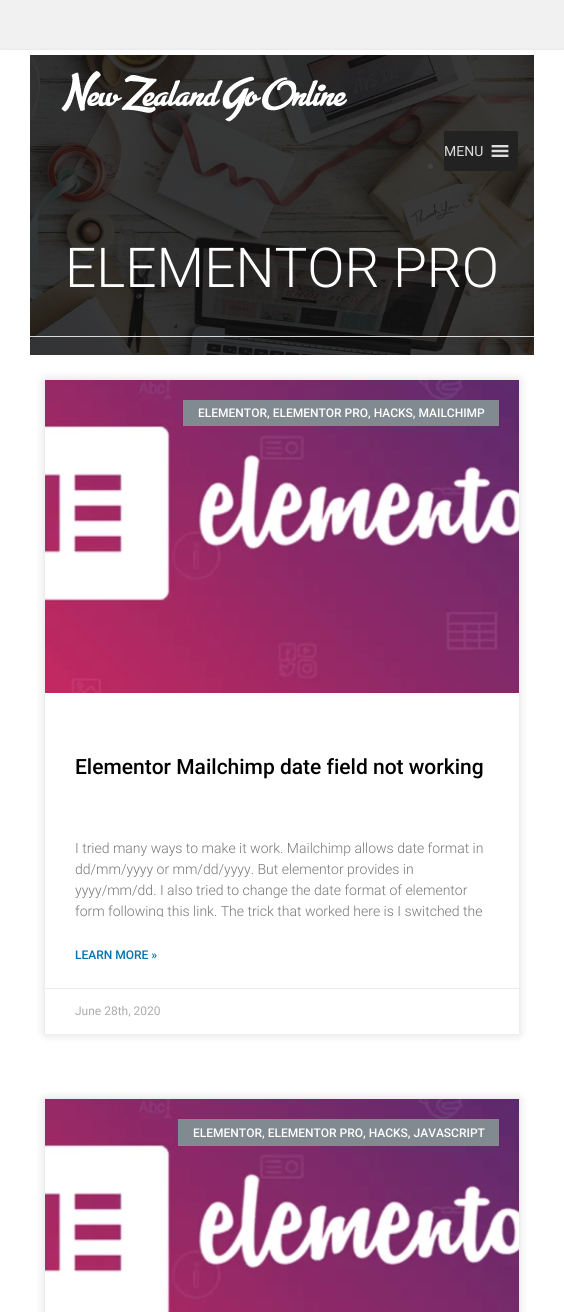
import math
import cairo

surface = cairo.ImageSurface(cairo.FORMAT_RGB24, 564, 1312)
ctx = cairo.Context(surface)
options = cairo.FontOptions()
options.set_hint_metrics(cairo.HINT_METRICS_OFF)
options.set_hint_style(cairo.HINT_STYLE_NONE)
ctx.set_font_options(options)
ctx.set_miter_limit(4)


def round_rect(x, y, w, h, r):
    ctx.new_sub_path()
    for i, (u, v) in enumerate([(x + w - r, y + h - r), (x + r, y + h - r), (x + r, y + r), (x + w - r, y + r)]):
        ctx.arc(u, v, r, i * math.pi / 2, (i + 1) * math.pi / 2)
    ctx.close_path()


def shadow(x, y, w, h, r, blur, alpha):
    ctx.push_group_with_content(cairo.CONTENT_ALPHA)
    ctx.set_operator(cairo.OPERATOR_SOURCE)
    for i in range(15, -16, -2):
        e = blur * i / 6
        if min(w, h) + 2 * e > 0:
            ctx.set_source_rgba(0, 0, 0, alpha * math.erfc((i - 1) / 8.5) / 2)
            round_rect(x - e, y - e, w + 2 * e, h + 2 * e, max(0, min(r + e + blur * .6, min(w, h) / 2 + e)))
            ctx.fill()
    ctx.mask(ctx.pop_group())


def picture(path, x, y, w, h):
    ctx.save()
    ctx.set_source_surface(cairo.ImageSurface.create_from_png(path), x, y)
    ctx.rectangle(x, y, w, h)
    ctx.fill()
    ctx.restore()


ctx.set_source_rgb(0.945, 0.945, 0.945)
ctx.paint()
ctx.set_source_rgb(0, 0, 0)
shadow(0, 51, 564, 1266, 0, 1.5, 0.13)
ctx.set_source_rgb(1, 1, 1)
ctx.rectangle(0, 50, 564, 1262)
ctx.fill()
picture("img1.png", 30, 55, 504, 300)
picture("img2.png", 61, 71, 286, 51)
ctx.set_source_rgb(0.133, 0.133, 0.133)
round_rect(444, 131, 74, 40, 2)
ctx.fill()
ctx.select_font_face("Roboto")
ctx.set_font_size(14)
ctx.set_source_rgb(0.867, 0.867, 0.867)
ctx.move_to(444, 156)
ctx.show_text("MENU")
picture("img3.png", 491, 145, 18, 12)
ctx.set_source_rgb(0.267, 0.267, 0.267)
ctx.arc(430.5, 166.5, 2.5, 0, 2 * math.pi)
ctx.fill()
ctx.set_source_rgb(0.855, 0.855, 0.855)
ctx.rectangle(30, 336, 504, 1)
ctx.fill()
ctx.select_font_face("Roboto Light")
ctx.set_font_size(55)
ctx.set_source_rgb(1, 1, 1)
ctx.move_to(65, 287)
ctx.show_text("ELEMENTOR PRO")
ctx.save()
ctx.set_fill_rule(cairo.FILL_RULE_EVEN_ODD)
ctx.new_path()
ctx.move_to(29, 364)
ctx.line_to(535, 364)
ctx.line_to(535, 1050)
ctx.line_to(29, 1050)
ctx.close_path()
ctx.move_to(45, 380)
ctx.line_to(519, 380)
ctx.line_to(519, 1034)
ctx.line_to(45, 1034)
ctx.close_path()
ctx.clip()
ctx.set_source_rgb(0, 0, 0)
shadow(45, 380, 474, 654, 0, 5, 0.15)
ctx.restore()
picture("img4.png", 45, 380, 474, 313)
ctx.set_source_rgb(0.506, 0.541, 0.569)
ctx.rectangle(183, 400, 316, 26)
ctx.fill()
ctx.select_font_face("Roboto Medium")
ctx.set_font_size(12)
ctx.set_source_rgb(1, 1, 1)
ctx.move_to(198, 417)
ctx.show_text("ELEMENTOR, ELEMENTOR PRO, HACKS, MAILCHIMP")
ctx.set_font_size(21)
ctx.set_source_rgb(0, 0, 0)
ctx.move_to(75, 774)
ctx.show_text("Elementor Mailchimp date field not working")
ctx.select_font_face("Roboto Light")
ctx.set_font_size(14)
ctx.set_source_rgb(0.467, 0.467, 0.467)
ctx.move_to(75, 853)
ctx.show_text("I tried many ways to make it work. Mailchimp allows date format in")
ctx.move_to(75, 874)
ctx.show_text("dd/mm/yyyy or mm/dd/yyyy. But elementor provides in")
ctx.move_to(75, 895)
ctx.show_text("yyyy/mm/dd. I also tried to change the date format of elementor")
ctx.save()
ctx.rectangle(75, 813, 414, 104)
ctx.clip()
ctx.move_to(75, 916)
ctx.show_text("form following this link. The trick that worked here is I switched the")
ctx.restore()
ctx.select_font_face("Roboto Medium")
ctx.set_font_size(12)
ctx.set_source_rgb(0, 0.451, 0.667)
ctx.move_to(75, 959)
ctx.show_text("LEARN MORE »")
ctx.set_source_rgb(0.918, 0.918, 0.918)
ctx.rectangle(45, 988, 474, 1)
ctx.fill()
ctx.select_font_face("Roboto")
ctx.set_source_rgb(0.678, 0.678, 0.678)
ctx.move_to(75, 1015)
ctx.show_text("June 28th, 2020")
ctx.set_source_rgb(0, 0, 0)
shadow(45, 1099, 474, 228, 0, 5, 0.15)
picture("img5.png", 45, 1099, 474, 213)
ctx.set_source_rgb(0.506, 0.541, 0.569)
ctx.rectangle(178, 1119, 321, 27)
ctx.fill()
ctx.select_font_face("Roboto Medium")
ctx.set_source_rgb(1, 1, 1)
ctx.move_to(193, 1137)
ctx.show_text("ELEMENTOR, ELEMENTOR PRO, HACKS, JAVASCRIPT")
surface.write_to_png("page.png")
